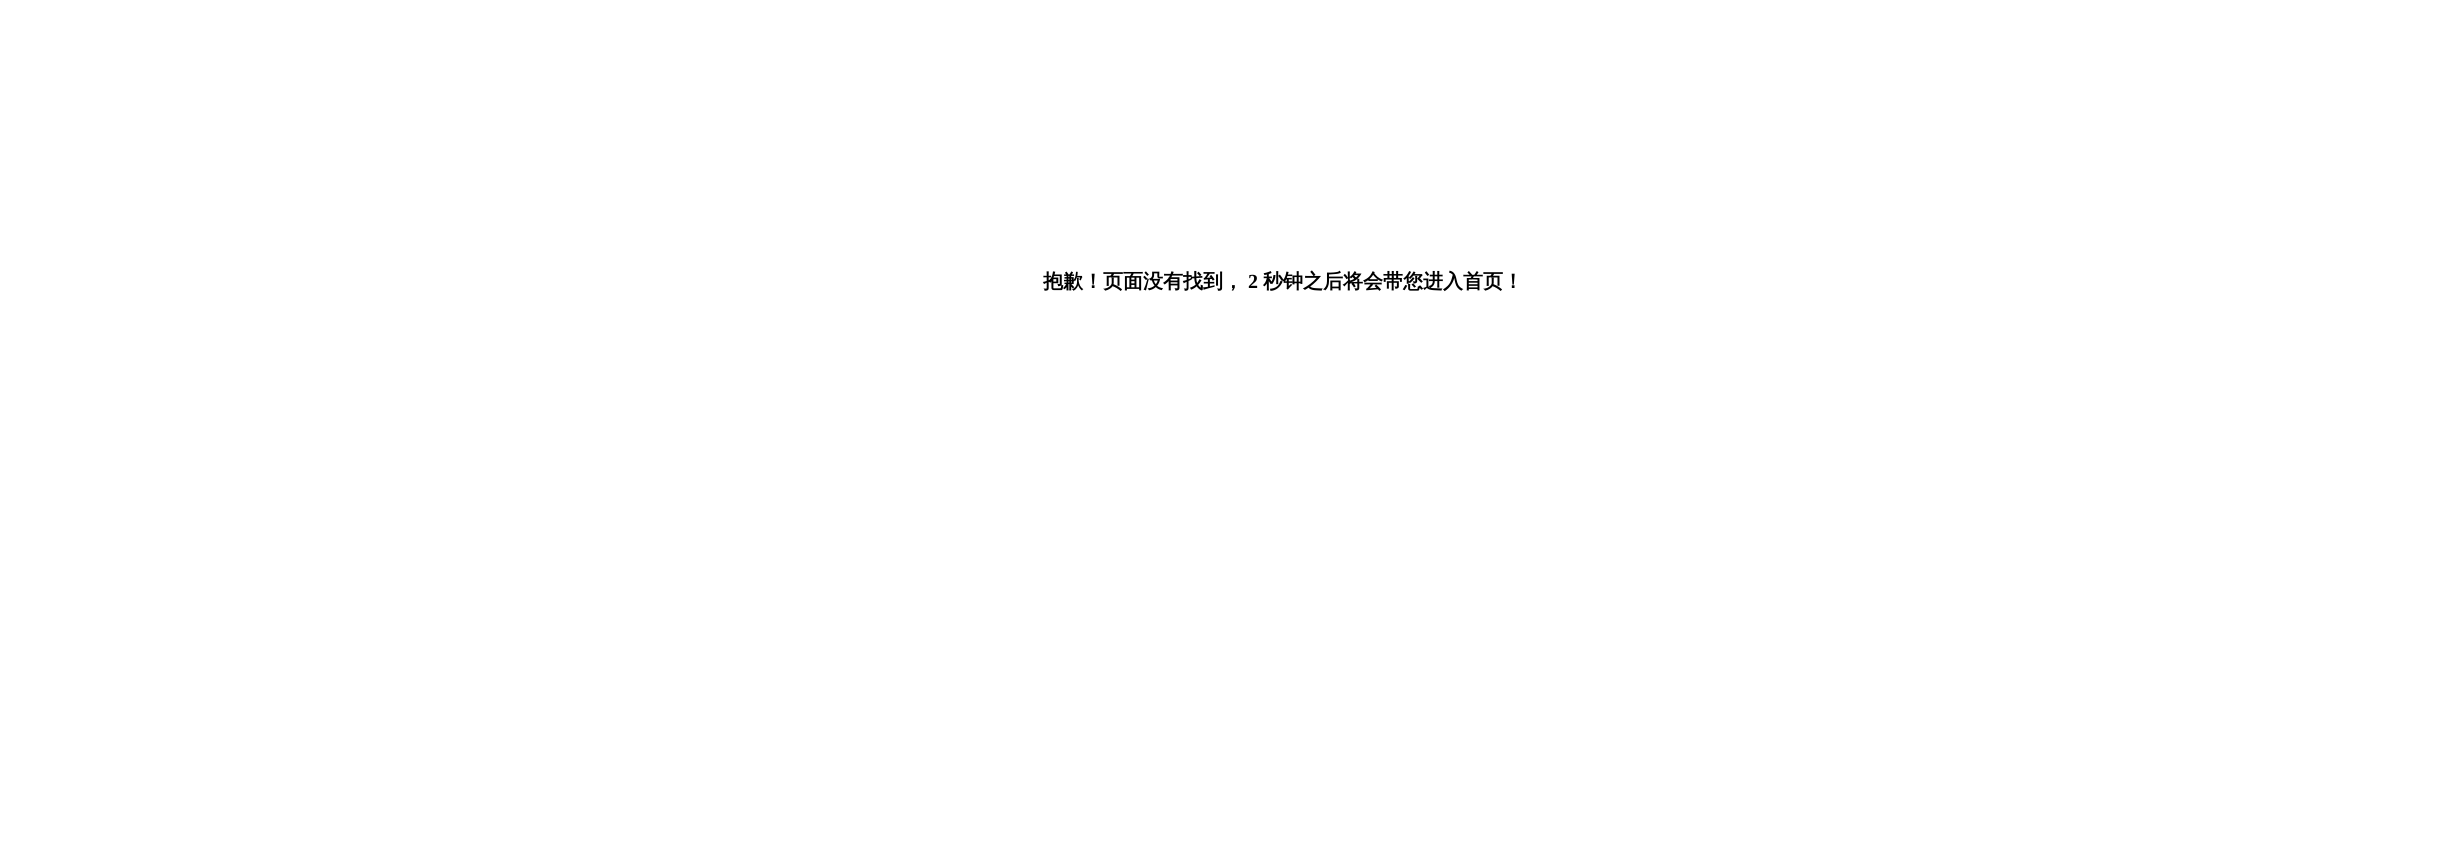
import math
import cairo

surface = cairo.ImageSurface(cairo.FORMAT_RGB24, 2464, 862)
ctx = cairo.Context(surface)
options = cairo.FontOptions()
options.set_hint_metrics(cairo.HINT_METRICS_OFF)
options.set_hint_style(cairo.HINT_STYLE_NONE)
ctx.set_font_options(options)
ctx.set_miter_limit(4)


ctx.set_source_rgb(1, 1, 1)
ctx.paint()
ctx.select_font_face("WenQuanYi Zen Hei", cairo.FONT_SLANT_NORMAL, cairo.FONT_WEIGHT_BOLD)
ctx.set_font_size(20)
ctx.set_source_rgb(0, 0, 0)
ctx.move_to(1043, 288)
ctx.show_text("抱歉！页面没有找到，")
ctx.select_font_face("Liberation Serif", cairo.FONT_SLANT_NORMAL, cairo.FONT_WEIGHT_BOLD)
ctx.move_to(1248, 288)
ctx.show_text("2")
ctx.select_font_face("WenQuanYi Zen Hei", cairo.FONT_SLANT_NORMAL, cairo.FONT_WEIGHT_BOLD)
ctx.move_to(1263, 288)
ctx.show_text("秒钟之后将会带您进入首页！")
surface.write_to_png("page.png")
